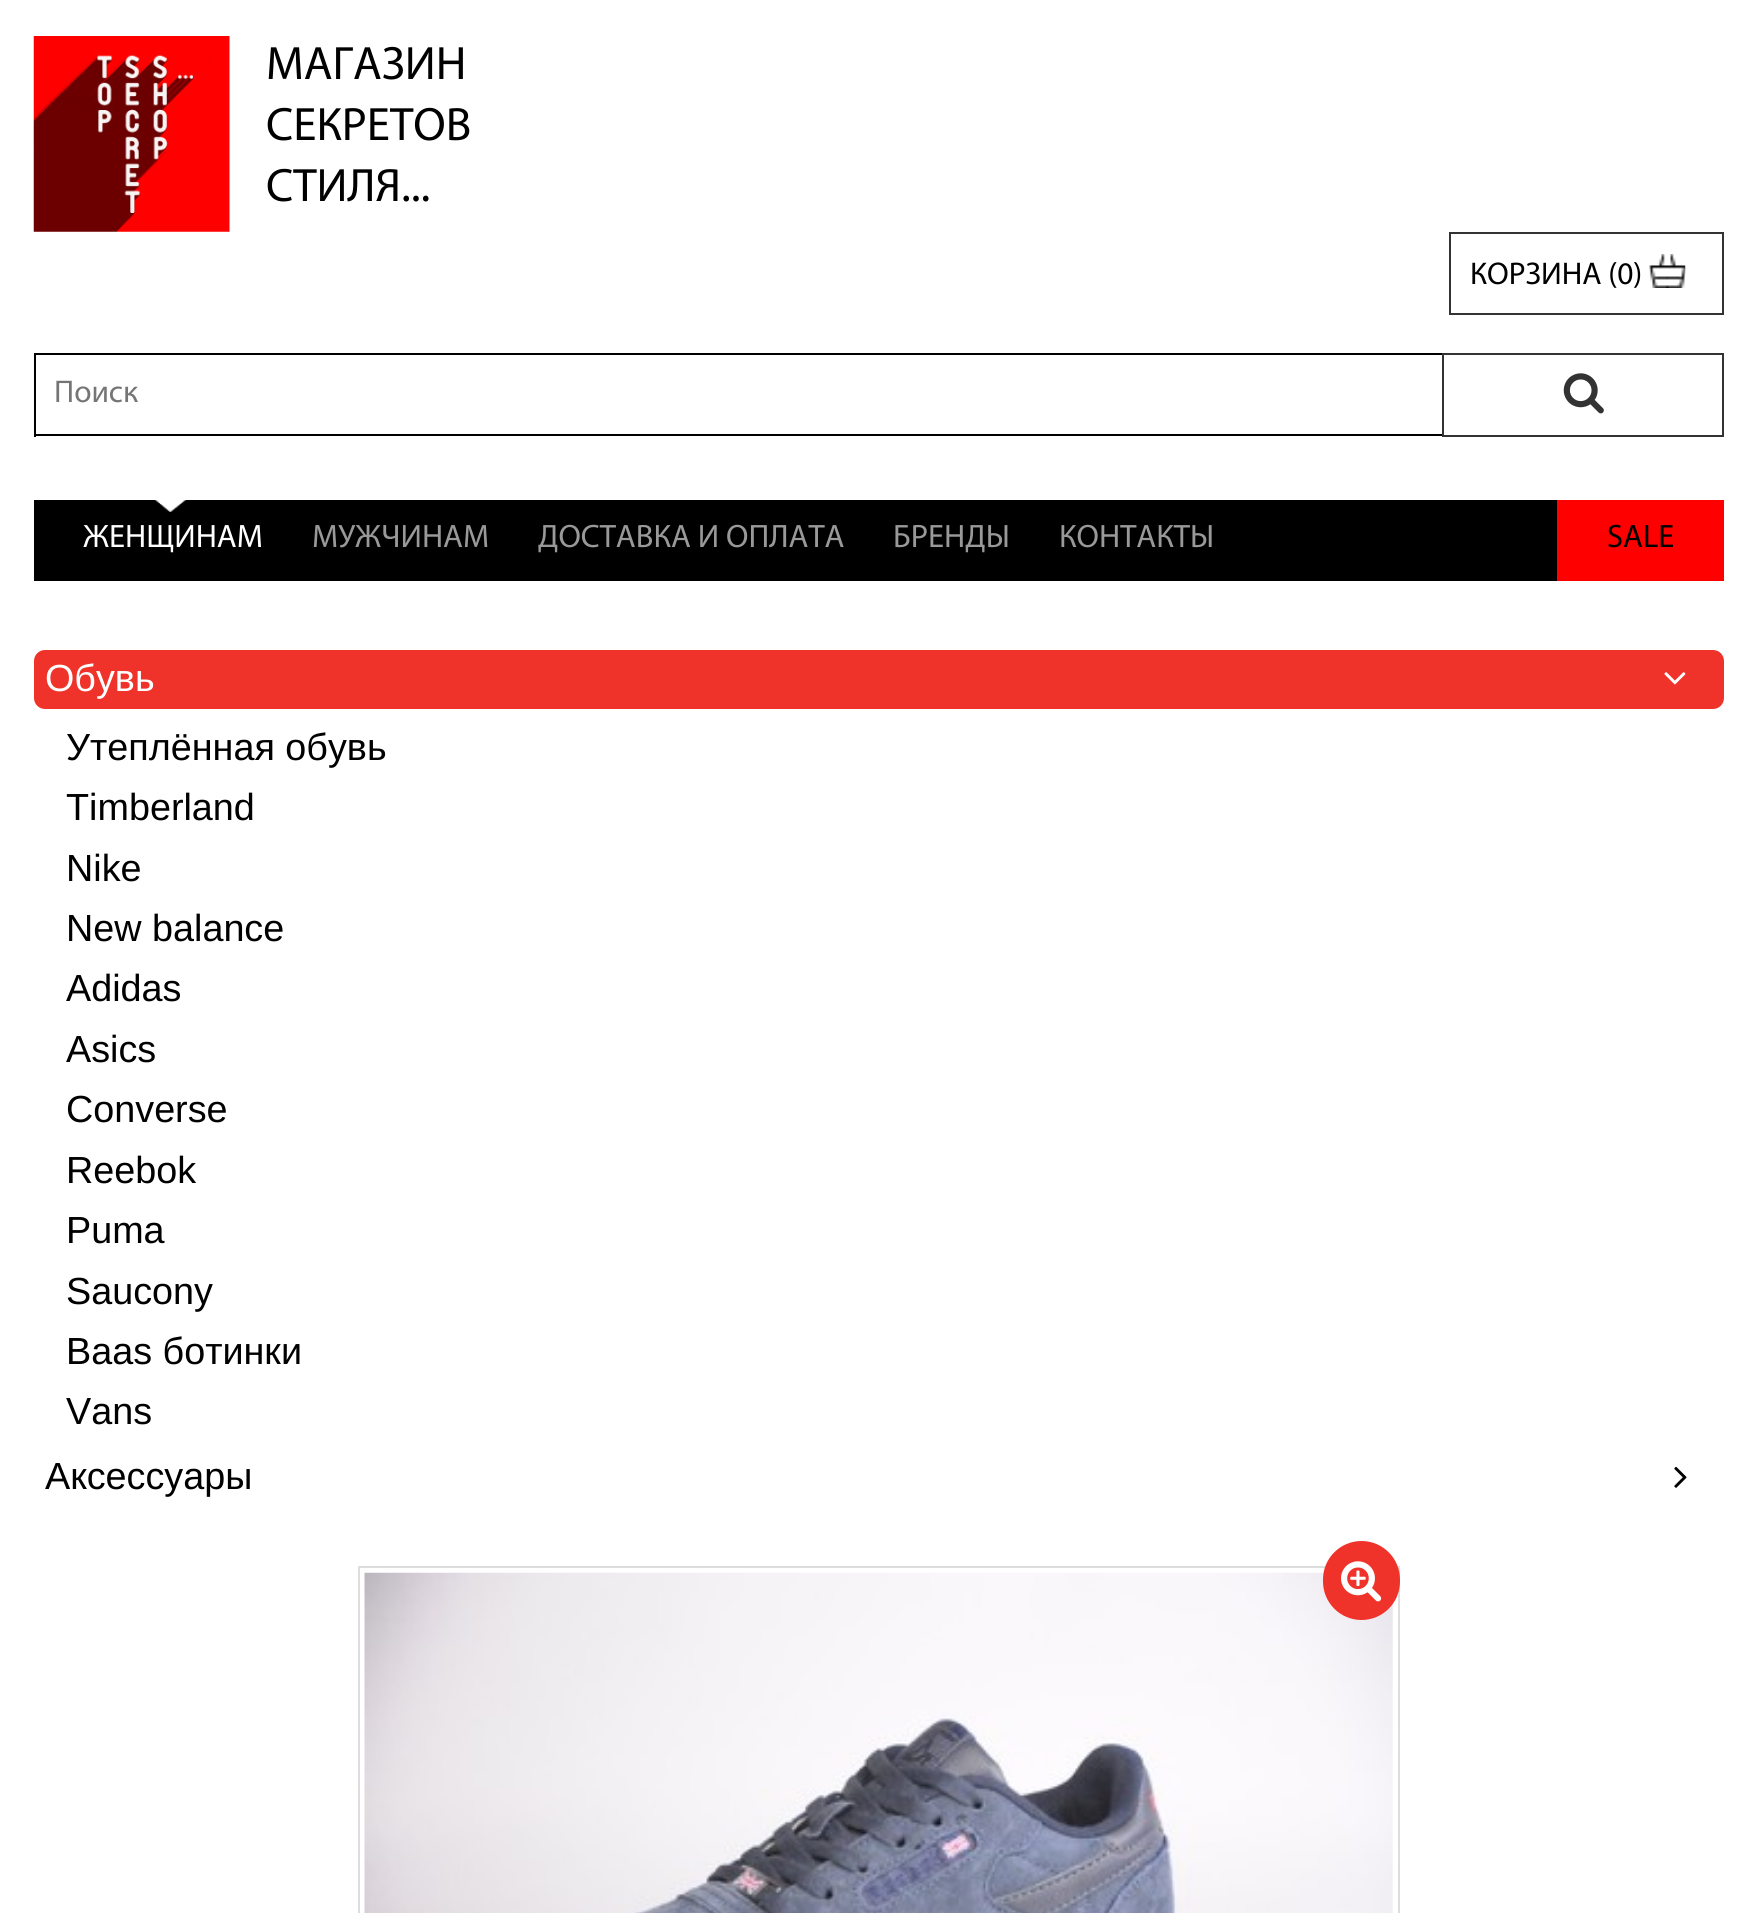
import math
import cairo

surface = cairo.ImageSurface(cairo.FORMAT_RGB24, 1756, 1913)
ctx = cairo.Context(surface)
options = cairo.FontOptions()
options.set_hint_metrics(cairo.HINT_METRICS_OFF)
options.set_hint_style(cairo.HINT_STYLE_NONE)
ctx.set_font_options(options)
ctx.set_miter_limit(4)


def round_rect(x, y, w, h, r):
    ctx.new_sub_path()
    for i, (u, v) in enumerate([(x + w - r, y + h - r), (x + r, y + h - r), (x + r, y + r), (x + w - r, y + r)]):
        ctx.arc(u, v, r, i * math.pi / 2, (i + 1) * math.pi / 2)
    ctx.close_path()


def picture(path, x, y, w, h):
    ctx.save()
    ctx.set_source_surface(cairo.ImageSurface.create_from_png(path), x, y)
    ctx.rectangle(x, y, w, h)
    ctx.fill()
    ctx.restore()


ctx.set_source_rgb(1, 1, 1)
ctx.paint()
picture("img1.png", 33, 36, 197, 196)
ctx.select_font_face("Myriad")
ctx.set_font_size(47)
ctx.set_source_rgb(0, 0, 0)
ctx.move_to(266, 79)
ctx.show_text("МАГАЗИН")
ctx.move_to(266, 140)
ctx.show_text("СЕКРЕТОВ")
ctx.move_to(266, 201)
ctx.show_text("СТИЛЯ...")
ctx.rectangle(1450, 233, 273, 81)
ctx.set_source_rgb(0.2, 0.2, 0.2)
ctx.stroke()
ctx.set_font_size(31.5)
ctx.set_source_rgb(0, 0, 0)
ctx.move_to(1470, 284)
ctx.show_text("КОРЗИНА (0)")
picture("img2.png", 1649, 254, 37, 34)
ctx.rectangle(34, 353, 1408, 2)
ctx.fill()
ctx.rectangle(34, 434, 1408, 2)
ctx.fill()
ctx.rectangle(34, 353, 2, 84)
ctx.fill()
ctx.set_source_rgb(0.459, 0.459, 0.459)
ctx.move_to(54, 402)
ctx.show_text("Поиск")
ctx.rectangle(1443, 354, 280, 82)
ctx.set_source_rgb(0.2, 0.2, 0.2)
ctx.stroke()
picture("img3.png", 1563, 373, 41, 41)
ctx.set_source_rgb(0, 0, 0)
ctx.rectangle(34, 500, 1523, 81)
ctx.fill()
picture("img4.png", 155, 500, 32, 12)
ctx.set_font_size(32.5)
ctx.set_source_rgb(1, 1, 1)
ctx.move_to(83, 547)
ctx.show_text("ЖЕНЩИНАМ")
ctx.set_source_rgb(0.6, 0.6, 0.6)
ctx.move_to(312, 547)
ctx.show_text("МУЖЧИНАМ")
ctx.move_to(538, 547)
ctx.show_text("ДОСТАВКА И ОПЛАТА")
ctx.move_to(893, 547)
ctx.show_text("БРЕНДЫ")
ctx.move_to(1059, 547)
ctx.show_text("КОНТАКТЫ")
ctx.set_source_rgb(1, 0, 0)
ctx.rectangle(1557, 500, 167, 81)
ctx.fill()
ctx.set_source_rgb(0, 0, 0)
ctx.move_to(1607, 547)
ctx.show_text("SALE")
ctx.set_source_rgb(0.941, 0.2, 0.165)
round_rect(34, 650, 1690, 59, 11)
ctx.fill()
ctx.select_font_face("Liberation Sans")
ctx.set_font_size(37.75)
ctx.set_source_rgb(1, 1, 1)
ctx.move_to(45, 691)
ctx.show_text("Обувь")
picture("img5.png", 1664, 672, 22, 13)
ctx.set_source_rgb(0, 0, 0)
ctx.move_to(66, 760)
ctx.show_text("Утеплённая обувь")
ctx.move_to(66, 820)
ctx.show_text("Timberland")
ctx.move_to(66, 881)
ctx.show_text("Nike")
ctx.move_to(66, 941)
ctx.show_text("New balance")
ctx.move_to(66, 1001)
ctx.show_text("Adidas")
ctx.move_to(66, 1062)
ctx.show_text("Asics")
ctx.move_to(66, 1122)
ctx.show_text("Converse")
ctx.move_to(66, 1183)
ctx.show_text("Reebok")
ctx.move_to(66, 1243)
ctx.show_text("Puma")
ctx.move_to(66, 1304)
ctx.show_text("Saucony")
ctx.move_to(66, 1364)
ctx.show_text("Baas ботинки")
ctx.move_to(66, 1424)
ctx.show_text("Vans")
ctx.move_to(45, 1489)
ctx.show_text("Аксессуары")
picture("img6.png", 1674, 1466, 13, 22)
ctx.rectangle(359, 1567, 1040, 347)
ctx.set_source_rgb(0.867, 0.867, 0.867)
ctx.stroke()
picture("img8.png", 364, 1572, 1029, 341)
ctx.set_source_rgb(0.941, 0.2, 0.165)
round_rect(1323, 1541, 77, 79, 38.5)
ctx.fill()
picture("img7.png", 1341, 1561, 41, 41)
surface.write_to_png("page.png")
